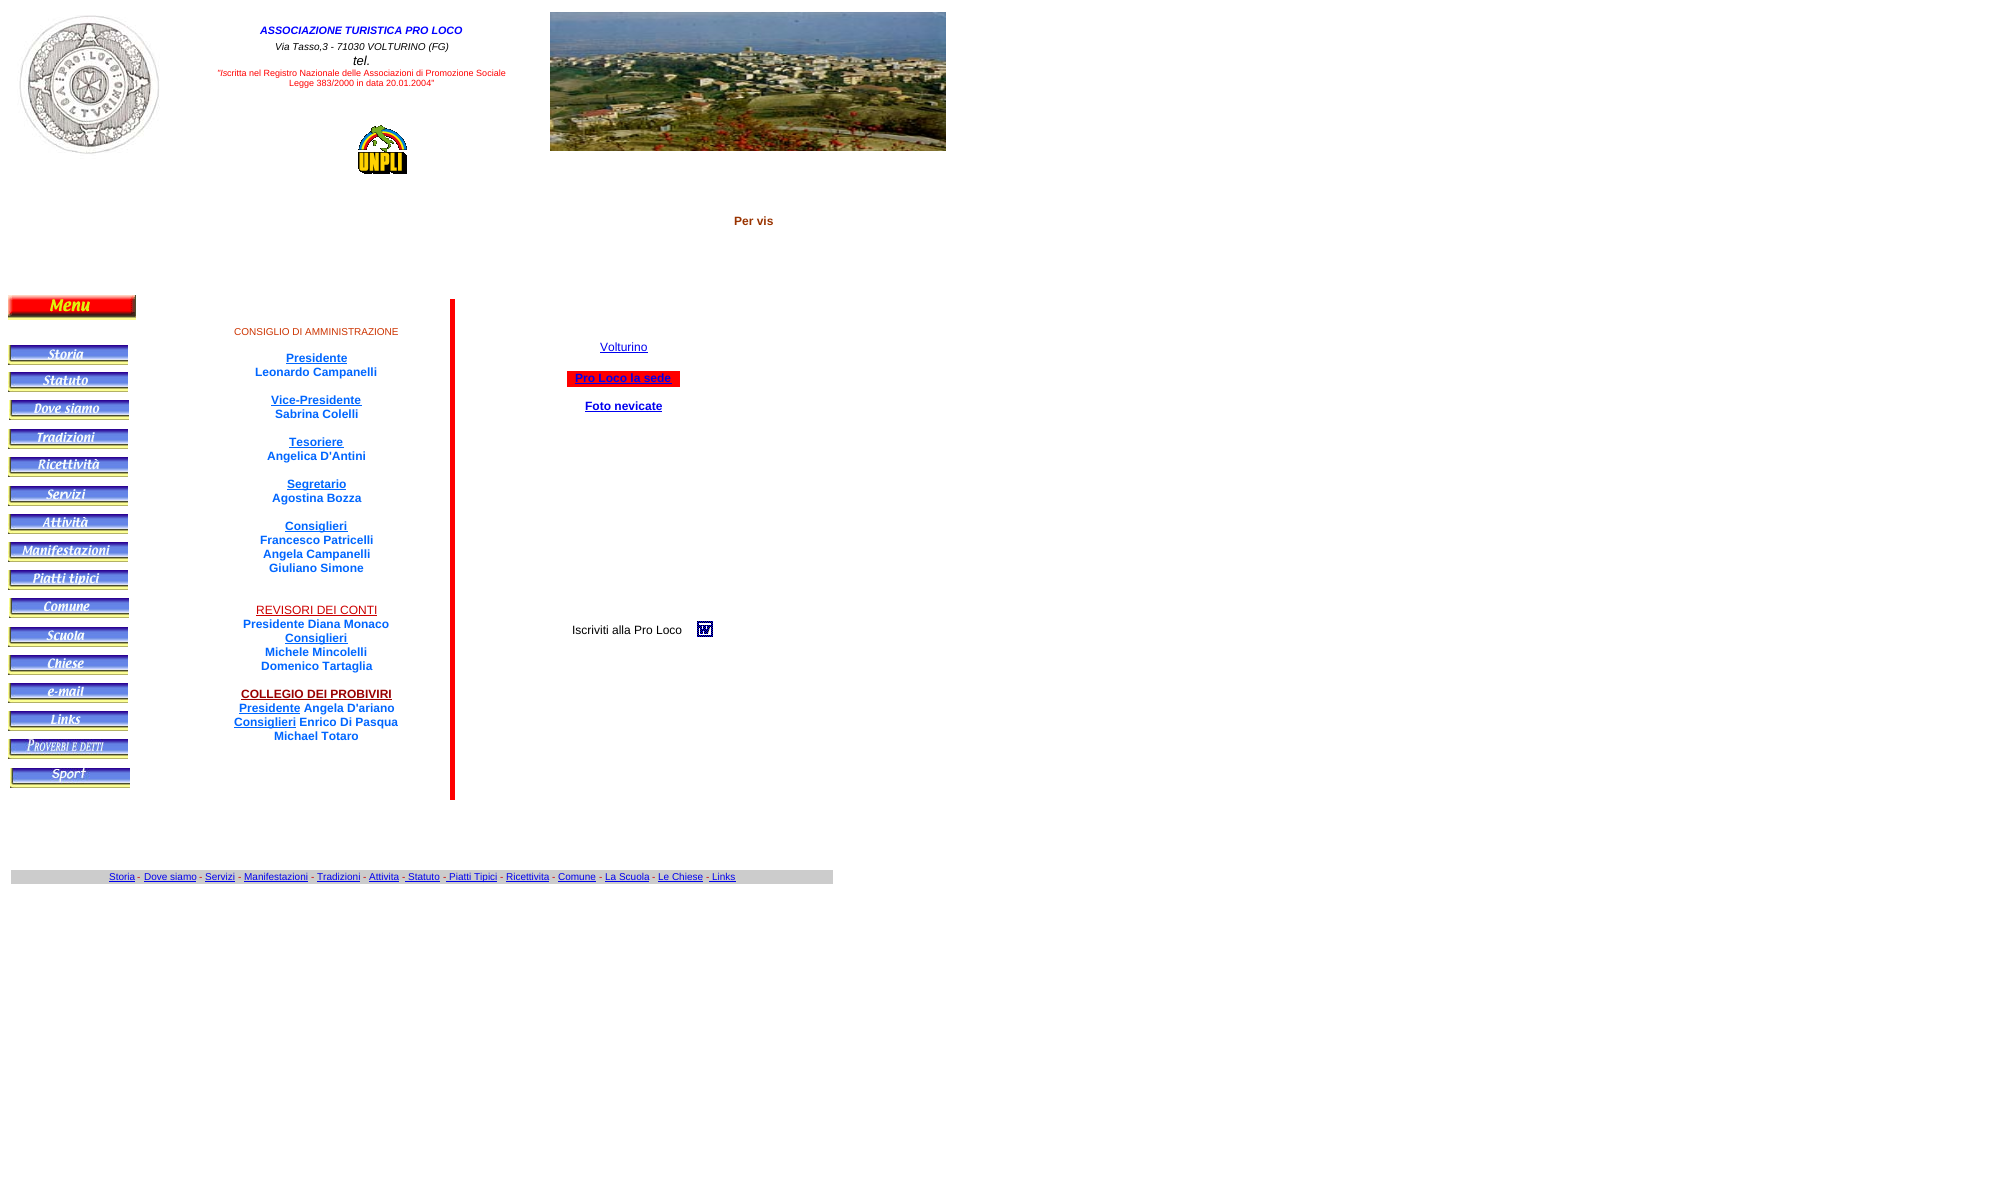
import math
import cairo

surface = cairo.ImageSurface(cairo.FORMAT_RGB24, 2000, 1178)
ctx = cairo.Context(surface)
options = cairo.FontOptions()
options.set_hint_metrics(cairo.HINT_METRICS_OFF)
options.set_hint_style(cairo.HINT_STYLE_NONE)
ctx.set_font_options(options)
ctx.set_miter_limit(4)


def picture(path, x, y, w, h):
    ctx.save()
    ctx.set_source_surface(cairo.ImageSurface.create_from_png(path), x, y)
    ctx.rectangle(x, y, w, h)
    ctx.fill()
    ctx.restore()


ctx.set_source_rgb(1, 1, 1)
ctx.paint()
picture("img1.png", 17, 15, 143, 144)
ctx.select_font_face("Liberation Sans", cairo.FONT_SLANT_ITALIC, cairo.FONT_WEIGHT_BOLD)
ctx.set_font_size(10.75)
ctx.set_source_rgb(0, 0, 1)
ctx.move_to(260, 34)
ctx.show_text("ASSOCIAZIONE TURISTICA PRO LOCO")
ctx.select_font_face("Liberation Sans", cairo.FONT_SLANT_ITALIC)
ctx.set_font_size(10)
ctx.set_source_rgb(0, 0, 0)
ctx.move_to(275, 50)
ctx.show_text("Via Tasso,3 - 71030 VOLTURINO (FG)")
ctx.set_font_size(13)
ctx.move_to(353, 65)
ctx.show_text("tel.")
ctx.set_font_size(9)
ctx.set_source_rgb(1, 0, 0)
ctx.move_to(217, 76)
ctx.show_text("\"Is")
ctx.select_font_face("Liberation Sans")
ctx.move_to(227, 76)
ctx.show_text("critta nel Registro Nazionale delle Associazioni di Promozione Sociale")
ctx.move_to(289, 86)
ctx.show_text("Legge 383/2000 in data 20.01.2004\"")
picture("img2.png", 550, 12, 396, 139)
picture("img3.png", 358, 125, 49, 49)
ctx.select_font_face("Liberation Sans", cairo.FONT_SLANT_NORMAL, cairo.FONT_WEIGHT_BOLD)
ctx.set_font_size(12)
ctx.set_source_rgb(0.6, 0.2, 0)
ctx.move_to(734, 225)
ctx.show_text("Per vis")
picture("img4.png", 8, 295, 128, 25)
ctx.select_font_face("Liberation Sans")
ctx.set_font_size(10)
ctx.set_source_rgb(0.8, 0.2, 0)
ctx.move_to(234, 335)
ctx.show_text("CONSIGLIO DI AMMINISTRAZIONE")
ctx.select_font_face("Liberation Sans", cairo.FONT_SLANT_NORMAL, cairo.FONT_WEIGHT_BOLD)
ctx.set_font_size(12)
ctx.set_source_rgb(0, 0.4, 1)
ctx.move_to(286, 362)
ctx.show_text("Presidente")
ctx.rectangle(286, 363, 61, 1)
ctx.fill()
ctx.move_to(255, 376)
ctx.show_text("Leonardo Campanelli")
ctx.move_to(271, 404)
ctx.show_text("Vice-Presidente")
ctx.rectangle(271, 405, 91, 1)
ctx.fill()
ctx.move_to(275, 418)
ctx.show_text("Sabrina Colelli")
ctx.move_to(289, 446)
ctx.show_text("Tesoriere")
ctx.rectangle(289, 447, 55, 1)
ctx.fill()
ctx.move_to(267, 460)
ctx.show_text("Angelica D'Antini")
ctx.rectangle(287, 489, 59, 1)
ctx.fill()
ctx.move_to(287, 488)
ctx.show_text("Segretario")
ctx.move_to(272, 502)
ctx.show_text("Agostina Bozza")
ctx.rectangle(285, 531, 63, 1)
ctx.fill()
ctx.move_to(285, 530)
ctx.show_text("Consiglieri")
ctx.move_to(260, 544)
ctx.show_text("Francesco Patricelli")
ctx.move_to(263, 558)
ctx.show_text("Angela Campanelli")
ctx.move_to(269, 572)
ctx.show_text("Giuliano Simone")
ctx.select_font_face("Liberation Sans")
ctx.set_source_rgb(0.8, 0, 0)
ctx.move_to(256, 614)
ctx.show_text("REVISORI DEI CONTI")
ctx.rectangle(256, 615, 121, 1)
ctx.fill()
ctx.select_font_face("Liberation Sans", cairo.FONT_SLANT_NORMAL, cairo.FONT_WEIGHT_BOLD)
ctx.set_source_rgb(0, 0.4, 1)
ctx.move_to(243, 628)
ctx.show_text("Presidente Diana Monaco")
ctx.rectangle(285, 643, 63, 1)
ctx.fill()
ctx.move_to(285, 642)
ctx.show_text("Consiglieri")
ctx.move_to(265, 656)
ctx.show_text("Michele Mincolelli")
ctx.move_to(261, 670)
ctx.show_text("Domenico Tartaglia")
ctx.set_source_rgb(0.6, 0, 0)
ctx.move_to(241, 698)
ctx.show_text("COLLEGIO DEI PROBIVIRI")
ctx.rectangle(241, 699, 151, 1)
ctx.fill()
ctx.set_source_rgb(0, 0.4, 1)
ctx.rectangle(239, 713, 61, 1)
ctx.fill()
ctx.move_to(239, 712)
ctx.show_text("Presidente Angela D'ariano")
ctx.rectangle(234, 727, 62, 1)
ctx.fill()
ctx.move_to(234, 726)
ctx.show_text("Consiglieri Enrico Di Pasqua")
ctx.move_to(274, 740)
ctx.show_text("Michael Totaro")
ctx.set_source_rgb(1, 0, 0)
ctx.rectangle(450, 299, 5, 501)
ctx.fill()
ctx.select_font_face("Liberation Sans")
ctx.set_source_rgb(0, 0, 0.933)
ctx.move_to(600, 351)
ctx.show_text("Volturino")
ctx.rectangle(600, 352, 48, 1)
ctx.fill()
picture("img5.png", 8, 345, 120, 20)
picture("img6.png", 8, 372, 120, 20)
ctx.set_source_rgb(1, 0, 0)
ctx.rectangle(567, 371, 113, 16)
ctx.fill()
ctx.select_font_face("Liberation Sans", cairo.FONT_SLANT_NORMAL, cairo.FONT_WEIGHT_BOLD)
ctx.set_source_rgb(0, 0, 0.933)
ctx.move_to(575, 382)
ctx.show_text("Pro Loco la sede")
ctx.rectangle(575, 383, 97, 1)
ctx.fill()
picture("img7.png", 9, 400, 120, 20)
ctx.move_to(585, 410)
ctx.show_text("Foto nevicate")
ctx.rectangle(585, 411, 77, 1)
ctx.fill()
picture("img8.png", 8, 429, 120, 20)
picture("img9.png", 8, 457, 120, 20)
picture("img10.png", 8, 486, 120, 20)
picture("img11.png", 8, 514, 120, 20)
picture("img12.png", 8, 542, 120, 20)
picture("img13.png", 8, 570, 120, 20)
picture("img14.png", 9, 598, 120, 20)
picture("img15.png", 8, 627, 120, 20)
ctx.select_font_face("Liberation Sans")
ctx.set_source_rgb(0, 0, 0)
ctx.move_to(572, 634)
ctx.show_text("Iscriviti alla Pro Loco")
picture("img16.png", 697, 621, 16, 16)
picture("img17.png", 8, 655, 120, 20)
picture("img18.png", 8, 683, 120, 20)
picture("img19.png", 8, 711, 120, 20)
picture("img20.png", 8, 739, 120, 20)
picture("img21.png", 10, 768, 120, 20)
ctx.set_source_rgb(0.8, 0.8, 0.8)
ctx.rectangle(11, 870, 822, 14)
ctx.fill()
ctx.set_font_size(10)
ctx.set_source_rgb(0, 0, 0.933)
ctx.move_to(109, 880)
ctx.show_text("Storia")
ctx.rectangle(109, 881, 26, 1)
ctx.fill()
ctx.set_source_rgb(0.8, 0, 0)
ctx.move_to(137, 880)
ctx.show_text("-")
ctx.set_source_rgb(0, 0, 0.933)
ctx.move_to(144, 880)
ctx.show_text("Dove siamo")
ctx.rectangle(144, 881, 52, 1)
ctx.fill()
ctx.set_source_rgb(0.8, 0, 0)
ctx.move_to(199, 880)
ctx.show_text("-")
ctx.set_source_rgb(0, 0, 0.933)
ctx.move_to(205, 880)
ctx.show_text("Servizi")
ctx.rectangle(205, 881, 30, 1)
ctx.fill()
ctx.set_source_rgb(0.8, 0, 0)
ctx.move_to(238, 880)
ctx.show_text("-")
ctx.set_source_rgb(0, 0, 0.933)
ctx.move_to(244, 880)
ctx.show_text("Manifestazioni")
ctx.rectangle(244, 881, 64, 1)
ctx.fill()
ctx.set_source_rgb(0.8, 0, 0)
ctx.move_to(311, 880)
ctx.show_text("-")
ctx.set_source_rgb(0, 0, 0.933)
ctx.move_to(317, 880)
ctx.show_text("Tradizioni")
ctx.rectangle(317, 881, 43, 1)
ctx.fill()
ctx.set_source_rgb(0.8, 0, 0)
ctx.move_to(363, 880)
ctx.show_text("-")
ctx.set_source_rgb(0, 0, 0.933)
ctx.move_to(369, 880)
ctx.show_text("Attivita")
ctx.rectangle(369, 881, 30, 1)
ctx.fill()
ctx.set_source_rgb(0.8, 0, 0)
ctx.move_to(402, 880)
ctx.show_text("-")
ctx.set_source_rgb(0, 0, 0.933)
ctx.rectangle(405, 881, 35, 1)
ctx.fill()
ctx.move_to(408, 880)
ctx.show_text("Statuto")
ctx.set_source_rgb(0.8, 0, 0)
ctx.move_to(443, 880)
ctx.show_text("-")
ctx.set_source_rgb(0, 0, 0.933)
ctx.rectangle(446, 881, 51, 1)
ctx.fill()
ctx.move_to(449, 880)
ctx.show_text("Piatti Tipici")
ctx.set_source_rgb(0.8, 0, 0)
ctx.move_to(500, 880)
ctx.show_text("-")
ctx.set_source_rgb(0, 0, 0.933)
ctx.move_to(506, 880)
ctx.show_text("Ricettivita")
ctx.rectangle(506, 881, 43, 1)
ctx.fill()
ctx.set_source_rgb(0.8, 0, 0)
ctx.move_to(552, 880)
ctx.show_text("-")
ctx.set_source_rgb(0, 0, 0.933)
ctx.move_to(558, 880)
ctx.show_text("Comune")
ctx.rectangle(558, 881, 38, 1)
ctx.fill()
ctx.set_source_rgb(0.8, 0, 0)
ctx.move_to(599, 880)
ctx.show_text("-")
ctx.set_source_rgb(0, 0, 0.933)
ctx.move_to(605, 880)
ctx.show_text("La Scuola")
ctx.rectangle(605, 881, 44, 1)
ctx.fill()
ctx.set_source_rgb(0.8, 0, 0)
ctx.move_to(652, 880)
ctx.show_text("-")
ctx.set_source_rgb(0, 0, 0.933)
ctx.move_to(658, 880)
ctx.show_text("Le Chiese")
ctx.rectangle(658, 881, 45, 1)
ctx.fill()
ctx.set_source_rgb(0.8, 0, 0)
ctx.move_to(706, 880)
ctx.show_text("-")
ctx.set_source_rgb(0, 0, 0.933)
ctx.rectangle(709, 881, 27, 1)
ctx.fill()
ctx.move_to(712, 880)
ctx.show_text("Links")
surface.write_to_png("page.png")
